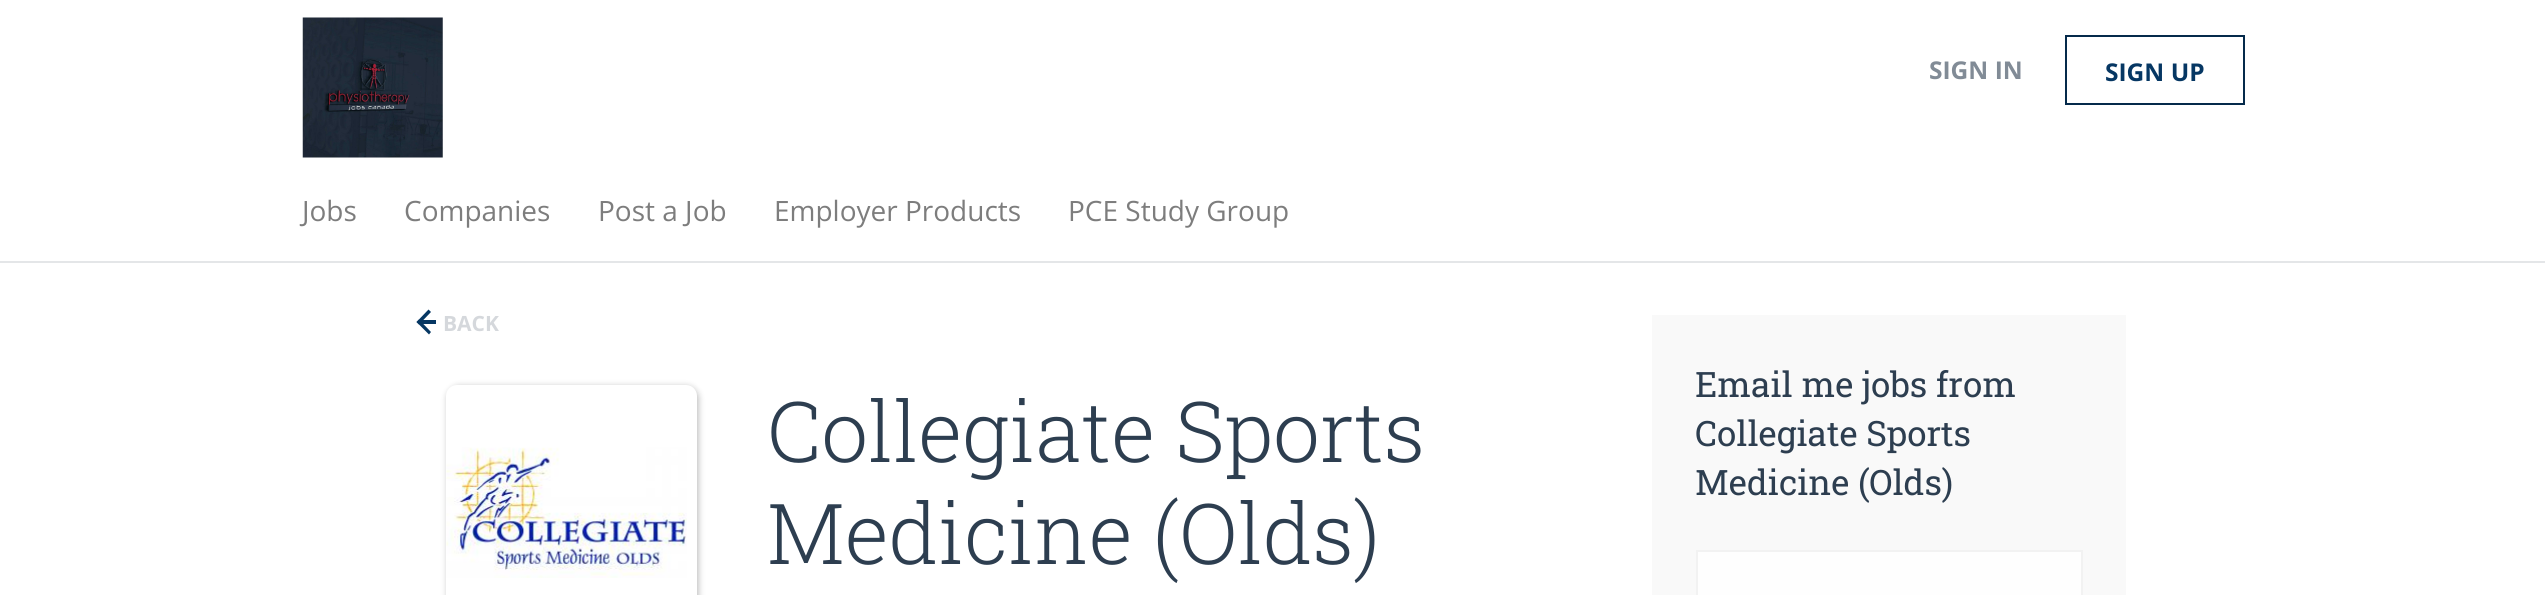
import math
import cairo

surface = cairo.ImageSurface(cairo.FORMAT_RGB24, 2545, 595)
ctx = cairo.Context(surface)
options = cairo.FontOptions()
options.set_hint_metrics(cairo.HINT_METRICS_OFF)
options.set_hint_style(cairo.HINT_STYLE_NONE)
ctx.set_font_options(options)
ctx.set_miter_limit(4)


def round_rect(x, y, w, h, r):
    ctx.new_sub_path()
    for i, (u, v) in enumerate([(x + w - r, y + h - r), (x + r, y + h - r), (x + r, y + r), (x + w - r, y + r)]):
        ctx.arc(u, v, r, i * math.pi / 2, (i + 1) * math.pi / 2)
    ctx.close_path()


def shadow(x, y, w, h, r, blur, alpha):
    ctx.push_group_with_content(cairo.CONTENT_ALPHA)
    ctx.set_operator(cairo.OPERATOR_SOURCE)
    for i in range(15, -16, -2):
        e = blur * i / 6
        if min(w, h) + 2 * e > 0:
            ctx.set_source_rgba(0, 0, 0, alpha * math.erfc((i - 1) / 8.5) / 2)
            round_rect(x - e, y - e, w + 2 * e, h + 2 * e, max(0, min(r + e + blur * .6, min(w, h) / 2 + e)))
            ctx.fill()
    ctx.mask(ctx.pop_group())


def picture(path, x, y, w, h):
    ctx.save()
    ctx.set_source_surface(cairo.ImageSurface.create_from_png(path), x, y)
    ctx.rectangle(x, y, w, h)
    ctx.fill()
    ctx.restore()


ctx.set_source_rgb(1, 1, 1)
ctx.paint()
ctx.set_source_rgb(0.894, 0.902, 0.91)
ctx.rectangle(0, 261, 2545, 2)
ctx.fill()
picture("img1.png", 302, 17, 141, 141)
ctx.select_font_face("Open Sans", cairo.FONT_SLANT_NORMAL, cairo.FONT_WEIGHT_BOLD)
ctx.set_font_size(24.5)
ctx.set_source_rgb(0.506, 0.545, 0.588)
ctx.move_to(1929, 79)
ctx.show_text("SIGN IN")
ctx.rectangle(2066, 36, 178, 68)
ctx.set_source_rgb(0.02, 0.165, 0.294)
ctx.stroke()
ctx.set_source_rgb(0.027, 0.216, 0.388)
ctx.move_to(2105, 81)
ctx.show_text("SIGN UP")
ctx.select_font_face("Open Sans")
ctx.set_font_size(28)
ctx.set_source_rgb(0.49, 0.49, 0.49)
ctx.move_to(302, 221)
ctx.show_text("Jobs")
ctx.move_to(404, 221)
ctx.show_text("Companies")
ctx.move_to(598, 221)
ctx.show_text("Post a Job")
ctx.move_to(774, 221)
ctx.show_text("Employer Products")
ctx.move_to(1068, 221)
ctx.show_text("PCE Study Group")
ctx.set_source_rgb(0.027, 0.216, 0.388)
ctx.new_path()
ctx.move_to(419, 319.5)
ctx.line_to(431, 332)
ctx.line_to(429, 334.5)
ctx.line_to(416.5, 322)
ctx.close_path()
ctx.fill()
ctx.new_path()
ctx.move_to(428.5, 309.5)
ctx.line_to(431, 312)
ctx.line_to(419, 324.5)
ctx.line_to(416.5, 322)
ctx.close_path()
ctx.fill()
ctx.select_font_face("Open Sans", cairo.FONT_SLANT_NORMAL, cairo.FONT_WEIGHT_BOLD)
ctx.set_font_size(21)
ctx.set_source_rgb(0.835, 0.847, 0.863)
ctx.move_to(443, 331)
ctx.show_text("BACK")
ctx.set_source_rgb(0.027, 0.216, 0.388)
ctx.rectangle(420, 320, 16, 4)
ctx.fill()
ctx.set_source_rgb(0, 0, 0)
shadow(448, 387, 250, 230, 11, 3.5, 0.3)
ctx.set_source_rgb(1, 1, 1)
round_rect(446, 385, 251, 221, 11)
ctx.fill()
picture("img2.png", 446, 447, 241, 131)
ctx.select_font_face("Roboto Slab Light")
ctx.set_font_size(84)
ctx.set_source_rgb(0.176, 0.243, 0.314)
ctx.move_to(767, 462)
ctx.show_text("Collegiate Sports")
ctx.move_to(767, 564)
ctx.show_text("Medicine (Olds)")
ctx.set_source_rgb(0.973, 0.976, 0.976)
ctx.rectangle(1652, 315, 474, 280)
ctx.fill()
ctx.select_font_face("Roboto Slab")
ctx.set_font_size(35)
ctx.set_source_rgb(0.176, 0.243, 0.314)
ctx.move_to(1695, 397)
ctx.show_text("Email me jobs from")
ctx.move_to(1695, 446)
ctx.show_text("Collegiate Sports")
ctx.move_to(1695, 495)
ctx.show_text("Medicine (Olds)")
ctx.set_source_rgb(0.996, 0.996, 0.996)
ctx.rectangle(1697, 551, 385, 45)
ctx.fill_preserve()
ctx.set_source_rgb(0.949, 0.949, 0.949)
ctx.stroke()
surface.write_to_png("page.png")
